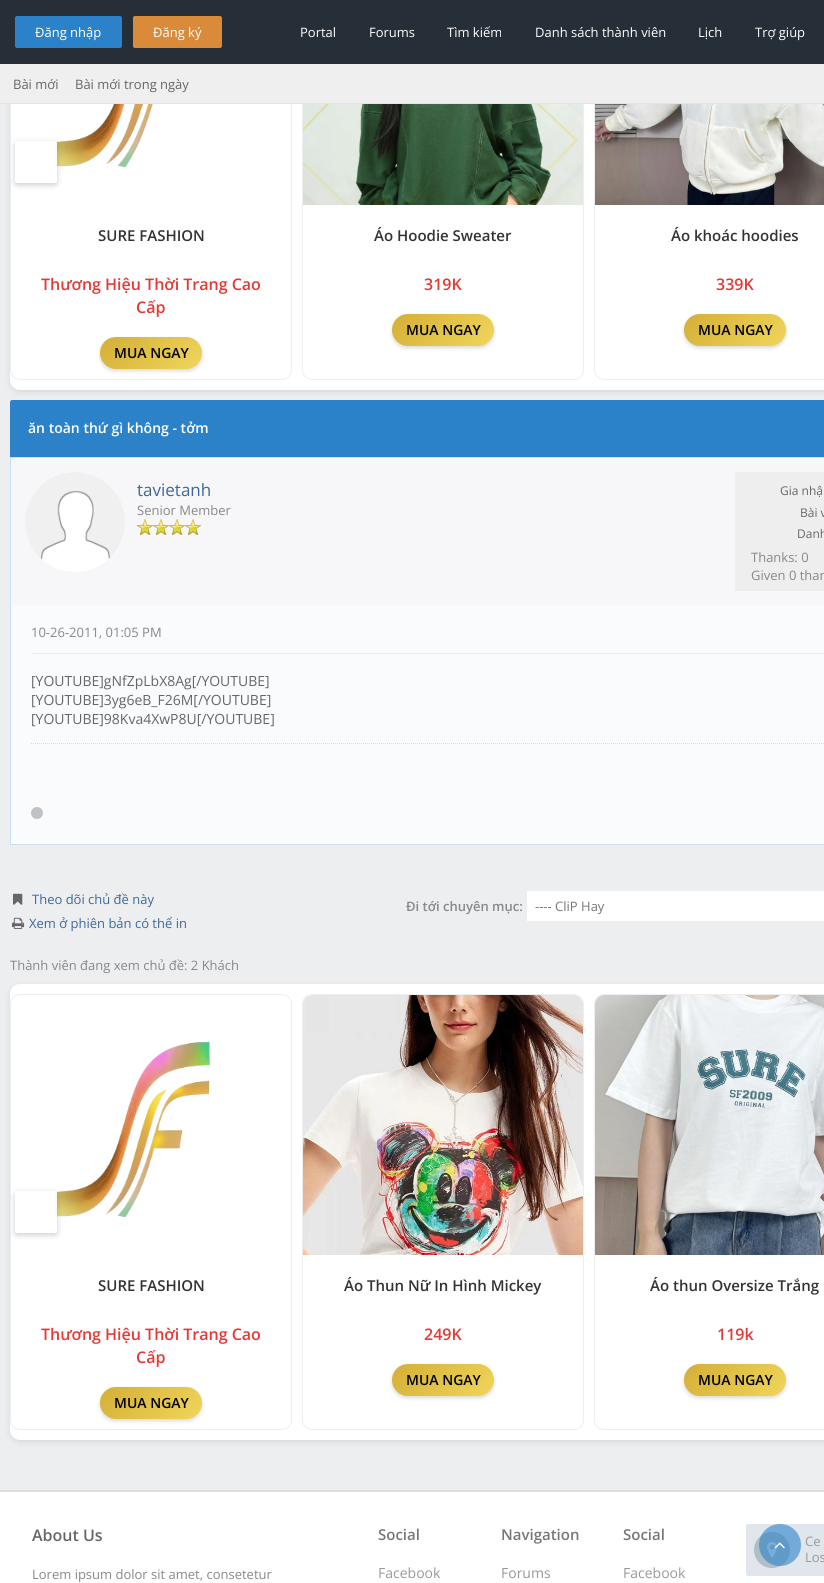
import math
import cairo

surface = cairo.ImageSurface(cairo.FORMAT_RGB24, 824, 1583)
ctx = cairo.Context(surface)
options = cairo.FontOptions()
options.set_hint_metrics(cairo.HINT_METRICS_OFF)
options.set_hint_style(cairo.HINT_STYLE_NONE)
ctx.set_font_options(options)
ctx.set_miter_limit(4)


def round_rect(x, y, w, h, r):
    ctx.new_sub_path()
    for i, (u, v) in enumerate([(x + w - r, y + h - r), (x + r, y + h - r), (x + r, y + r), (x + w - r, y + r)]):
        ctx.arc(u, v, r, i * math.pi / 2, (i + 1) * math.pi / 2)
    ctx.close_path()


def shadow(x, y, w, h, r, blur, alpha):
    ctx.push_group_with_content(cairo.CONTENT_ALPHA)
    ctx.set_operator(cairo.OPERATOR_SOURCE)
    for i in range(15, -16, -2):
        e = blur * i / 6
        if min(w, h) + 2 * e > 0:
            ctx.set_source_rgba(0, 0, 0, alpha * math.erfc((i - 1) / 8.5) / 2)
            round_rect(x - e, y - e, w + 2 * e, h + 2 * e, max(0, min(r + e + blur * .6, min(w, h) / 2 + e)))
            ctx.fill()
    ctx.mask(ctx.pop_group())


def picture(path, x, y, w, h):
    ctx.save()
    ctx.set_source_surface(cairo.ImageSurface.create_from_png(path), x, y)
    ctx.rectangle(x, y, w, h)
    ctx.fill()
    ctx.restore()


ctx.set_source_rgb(0.925, 0.933, 0.941)
ctx.paint()
ctx.set_source_rgb(0.173, 0.51, 0.788)
ctx.new_path()
ctx.move_to(12, 400)
ctx.line_to(824, 400)
ctx.curve_to(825, 400, 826, 401, 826, 402)
ctx.line_to(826, 457)
ctx.line_to(10, 457)
ctx.line_to(10, 402)
ctx.curve_to(10, 401, 11, 400, 12, 400)
ctx.close_path()
ctx.fill()
ctx.set_source_rgb(0, 0, 0)
shadow(10, -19, 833, 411, 10, 3, 0.1)
ctx.set_source_rgb(1, 1, 1)
round_rect(10, -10, 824, 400, 10)
ctx.fill()
round_rect(10.5, -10.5, 281, 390, 9.5)
ctx.set_source_rgb(0.933, 0.933, 0.933)
ctx.set_line_width(1)
ctx.stroke()
round_rect(302.5, -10.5, 281, 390, 9.5)
ctx.stroke()
round_rect(594.5, -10.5, 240, 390, 9.5)
ctx.stroke()
ctx.set_source_rgb(0.149, 0.18, 0.22)
ctx.rectangle(0, 0, 824, 64)
ctx.fill()
ctx.set_source_rgb(0.173, 0.51, 0.788)
round_rect(15, 16, 107, 32, 2)
ctx.fill()
ctx.select_font_face("Open Sans")
ctx.set_font_size(13)
ctx.set_source_rgb(1, 1, 1)
ctx.move_to(35, 37)
ctx.show_text("Đăng nhập")
ctx.set_source_rgb(0.851, 0.545, 0.227)
round_rect(133, 16, 89, 32, 2)
ctx.fill()
ctx.set_source_rgb(1, 1, 1)
ctx.move_to(153, 37)
ctx.show_text("Đăng ký")
ctx.move_to(300, 37)
ctx.show_text("Portal")
ctx.move_to(369, 37)
ctx.show_text("Forums")
ctx.move_to(447, 37)
ctx.show_text("Tìm kiếm")
ctx.move_to(535, 37)
ctx.show_text("Danh sách thành viên")
ctx.move_to(698, 37)
ctx.show_text("Lịch")
ctx.move_to(755, 37)
ctx.show_text("Trợ giúp")
ctx.set_source_rgb(0.937, 0.937, 0.937)
ctx.rectangle(0, 64, 824, 39)
ctx.fill()
ctx.set_source_rgb(0.89, 0.89, 0.89)
ctx.rectangle(0, 103, 824, 1)
ctx.fill()
ctx.set_source_rgb(0.4, 0.4, 0.4)
ctx.move_to(13, 89)
ctx.show_text("Bài mới")
ctx.move_to(75, 89)
ctx.show_text("Bài mới trong ngày")
picture("img1.png", 54, 104, 99, 64)
ctx.save()
ctx.set_fill_rule(cairo.FILL_RULE_EVEN_ODD)
ctx.new_path()
ctx.move_to(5, 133)
ctx.line_to(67, 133)
ctx.line_to(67, 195)
ctx.line_to(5, 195)
ctx.close_path()
ctx.move_to(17, 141)
ctx.line_to(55, 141)
ctx.curve_to(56, 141, 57, 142, 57, 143)
ctx.line_to(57, 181)
ctx.curve_to(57, 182, 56, 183, 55, 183)
ctx.line_to(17, 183)
ctx.curve_to(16, 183, 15, 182, 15, 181)
ctx.line_to(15, 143)
ctx.curve_to(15, 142, 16, 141, 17, 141)
ctx.close_path()
ctx.clip()
ctx.set_source_rgb(0, 0, 0)
shadow(15, 143, 42, 42, 2, 3, 0.2)
ctx.restore()
ctx.set_source_rgba(1, 1, 1, 0.9)
round_rect(15, 141, 42, 42, 2)
ctx.fill()
ctx.select_font_face("Open Sans SemiBold")
ctx.set_font_size(15)
ctx.set_source_rgb(0.2, 0.2, 0.2)
ctx.move_to(98, 241)
ctx.show_text("SURE FASHION")
ctx.set_font_size(16)
ctx.set_source_rgb(0.898, 0.224, 0.208)
ctx.move_to(41, 290)
ctx.show_text("Thương Hiệu Thời Trang Cao")
ctx.move_to(136, 313)
ctx.show_text("Cấp")
ctx.set_source_rgb(0, 0, 0)
shadow(100, 339, 102, 32, 16, 2, 0.15)
gradient = cairo.LinearGradient(118, 320, 185, 387)
gradient.add_color_stop_rgba(0, 0.831, 0.686, 0.216, 1)
gradient.add_color_stop_rgba(1, 0.945, 0.839, 0.361, 1)
ctx.set_source(gradient)
round_rect(100, 337, 102, 32, 16)
ctx.fill()
ctx.set_font_size(14)
ctx.set_source_rgb(0, 0, 0)
ctx.move_to(114, 358)
ctx.show_text("MUA NGAY")
picture("img2.png", 303, 104, 280, 101)
ctx.set_font_size(15)
ctx.set_source_rgb(0.2, 0.2, 0.2)
ctx.move_to(374, 241)
ctx.show_text("Áo Hoodie Sweater")
ctx.set_font_size(16)
ctx.set_source_rgb(0.898, 0.224, 0.208)
ctx.move_to(424, 290)
ctx.show_text("319K")
ctx.set_source_rgb(0, 0, 0)
shadow(392, 316, 102, 32, 16, 2, 0.15)
gradient = cairo.LinearGradient(410, 297, 477, 364)
gradient.add_color_stop_rgba(0, 0.831, 0.686, 0.216, 1)
gradient.add_color_stop_rgba(1, 0.945, 0.839, 0.361, 1)
ctx.set_source(gradient)
round_rect(392, 314, 102, 32, 16)
ctx.fill()
ctx.set_font_size(14)
ctx.set_source_rgb(0, 0, 0)
ctx.move_to(406, 335)
ctx.show_text("MUA NGAY")
picture("img3.png", 595, 104, 229, 101)
ctx.set_font_size(15)
ctx.set_source_rgb(0.2, 0.2, 0.2)
ctx.move_to(671, 241)
ctx.show_text("Áo khoác hoodies")
ctx.set_font_size(16)
ctx.set_source_rgb(0.898, 0.224, 0.208)
ctx.move_to(716, 290)
ctx.show_text("339K")
ctx.set_source_rgb(0, 0, 0)
shadow(684, 316, 102, 32, 16, 2, 0.15)
gradient = cairo.LinearGradient(702, 297, 769, 364)
gradient.add_color_stop_rgba(0, 0.831, 0.686, 0.216, 1)
gradient.add_color_stop_rgba(1, 0.945, 0.839, 0.361, 1)
ctx.set_source(gradient)
round_rect(684, 314, 102, 32, 16)
ctx.fill()
ctx.set_font_size(14)
ctx.set_source_rgb(0, 0, 0)
ctx.move_to(698, 335)
ctx.show_text("MUA NGAY")
ctx.set_source_rgb(1, 1, 1)
ctx.move_to(28, 433)
ctx.show_text("ăn toàn thứ gì không - tởm")
ctx.set_source_rgb(0.98, 0.984, 0.988)
ctx.rectangle(11, 605, 813, 239)
ctx.fill()
ctx.rectangle(10.5, 457.5, 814, 387)
ctx.set_source_rgb(0.804, 0.878, 0.945)
ctx.stroke()
ctx.set_source_rgb(0.965, 0.961, 0.969)
ctx.rectangle(11, 458, 813, 147)
ctx.fill()
ctx.set_source_rgb(1, 1, 1)
ctx.arc(75, 522, 50, 0, 2 * math.pi)
ctx.fill()
picture("img4.png", 25, 472, 100, 88)
ctx.select_font_face("Open Sans")
ctx.set_font_size(17)
ctx.set_source_rgb(0.235, 0.412, 0.612)
ctx.move_to(137, 496)
ctx.show_text("tavietanh")
ctx.set_font_size(13)
ctx.set_source_rgb(0.533, 0.533, 0.533)
ctx.move_to(137, 515)
ctx.show_text("Senior Member")
picture("img5.png", 137, 519, 16, 16)
picture("img5.png", 153, 519, 16, 16)
picture("img5.png", 169, 519, 16, 16)
picture("img5.png", 185, 519, 16, 16)
ctx.set_source_rgb(0.933, 0.933, 0.933)
ctx.rectangle(735, 472, 89, 119)
ctx.fill()
ctx.set_font_size(12)
ctx.set_source_rgb(0.4, 0.4, 0.4)
ctx.move_to(780, 495)
ctx.show_text("Gia nhậ")
ctx.move_to(800, 517)
ctx.show_text("Bài v")
ctx.move_to(797, 538)
ctx.show_text("Danh")
ctx.set_font_size(13)
ctx.set_source_rgb(0.533, 0.533, 0.533)
ctx.move_to(751, 562)
ctx.show_text("Thanks: 0")
ctx.move_to(751, 580)
ctx.show_text("Given 0 than")
ctx.set_source_rgb(0.933, 0.933, 0.933)
ctx.rectangle(31, 653, 793, 1)
ctx.fill()
ctx.set_source_rgb(0.533, 0.533, 0.533)
ctx.move_to(31, 637)
ctx.show_text("10-26-2011, 01:05 PM")
ctx.set_font_size(14)
ctx.set_source_rgb(0.4, 0.4, 0.4)
ctx.move_to(31, 686)
ctx.show_text("[YOUTUBE]gNfZpLbX8Ag[/YOUTUBE]")
ctx.move_to(31, 705)
ctx.show_text("[YOUTUBE]3yg6eB_F26M[/YOUTUBE]")
ctx.move_to(31, 724)
ctx.show_text("[YOUTUBE]98Kva4XwP8U[/YOUTUBE]")
ctx.new_path()
ctx.move_to(31, 743.5)
ctx.line_to(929, 743.5)
ctx.set_source_rgb(0.867, 0.867, 0.867)
ctx.set_dash([1, 1])
ctx.stroke()
ctx.set_source_rgb(0.741, 0.765, 0.78)
ctx.arc(37, 813, 6, 0, 2 * math.pi)
ctx.fill()
picture("img6.png", 13, 893, 10, 12)
ctx.set_font_size(13)
ctx.set_source_rgb(0.235, 0.412, 0.612)
ctx.move_to(32, 904)
ctx.show_text("Theo dõi chủ đề này")
picture("img7.png", 12, 917, 13, 12)
ctx.move_to(29, 928)
ctx.show_text("Xem ở phiên bản có thể in")
ctx.select_font_face("Open Sans SemiBold")
ctx.set_source_rgb(0.533, 0.533, 0.533)
ctx.move_to(406, 911)
ctx.show_text("Đi tới chuyên mục:")
ctx.set_source_rgb(1, 1, 1)
round_rect(526.5, 890.5, 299, 31, 0.5)
ctx.fill_preserve()
ctx.set_source_rgb(0.933, 0.933, 0.933)
ctx.set_dash([])
ctx.stroke()
ctx.select_font_face("Open Sans")
ctx.set_source_rgb(0.467, 0.467, 0.467)
ctx.move_to(535, 911)
ctx.show_text("---- CliP Hay")
ctx.set_source_rgb(0.533, 0.533, 0.533)
ctx.move_to(10, 970)
ctx.show_text("Thành viên đang xem chủ đề: 2 Khách")
ctx.set_source_rgb(0, 0, 0)
shadow(10, 986, 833, 456, 10, 3, 0.1)
ctx.set_source_rgb(1, 1, 1)
round_rect(10, 984, 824, 456, 10)
ctx.fill()
round_rect(10.5, 994.5, 281, 435, 9.5)
ctx.set_source_rgb(0.933, 0.933, 0.933)
ctx.stroke()
picture("img8.png", 54, 1041, 156, 177)
ctx.save()
ctx.set_fill_rule(cairo.FILL_RULE_EVEN_ODD)
ctx.new_path()
ctx.move_to(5, 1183)
ctx.line_to(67, 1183)
ctx.line_to(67, 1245)
ctx.line_to(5, 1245)
ctx.close_path()
ctx.move_to(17, 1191)
ctx.line_to(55, 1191)
ctx.curve_to(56, 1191, 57, 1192, 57, 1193)
ctx.line_to(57, 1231)
ctx.curve_to(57, 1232, 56, 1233, 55, 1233)
ctx.line_to(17, 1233)
ctx.curve_to(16, 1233, 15, 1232, 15, 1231)
ctx.line_to(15, 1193)
ctx.curve_to(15, 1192, 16, 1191, 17, 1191)
ctx.close_path()
ctx.clip()
ctx.set_source_rgb(0, 0, 0)
shadow(15, 1193, 42, 42, 2, 3, 0.2)
ctx.restore()
ctx.set_source_rgba(1, 1, 1, 0.9)
round_rect(15, 1191, 42, 42, 2)
ctx.fill()
ctx.select_font_face("Open Sans SemiBold")
ctx.set_font_size(15)
ctx.set_source_rgb(0.2, 0.2, 0.2)
ctx.move_to(98, 1291)
ctx.show_text("SURE FASHION")
ctx.set_font_size(16)
ctx.set_source_rgb(0.898, 0.224, 0.208)
ctx.move_to(41, 1340)
ctx.show_text("Thương Hiệu Thời Trang Cao")
ctx.move_to(136, 1363)
ctx.show_text("Cấp")
ctx.set_source_rgb(0, 0, 0)
shadow(100, 1389, 102, 32, 16, 2, 0.15)
gradient = cairo.LinearGradient(118, 1370, 185, 1437)
gradient.add_color_stop_rgba(0, 0.831, 0.686, 0.216, 1)
gradient.add_color_stop_rgba(1, 0.945, 0.839, 0.361, 1)
ctx.set_source(gradient)
round_rect(100, 1387, 102, 32, 16)
ctx.fill()
ctx.set_font_size(14)
ctx.set_source_rgb(0, 0, 0)
ctx.move_to(114, 1408)
ctx.show_text("MUA NGAY")
round_rect(302.5, 994.5, 281, 435, 9.5)
ctx.set_source_rgb(0.933, 0.933, 0.933)
ctx.stroke()
picture("img9.png", 303, 995, 280, 260)
ctx.set_font_size(15)
ctx.set_source_rgb(0.2, 0.2, 0.2)
ctx.move_to(344, 1291)
ctx.show_text("Áo Thun Nữ In Hình Mickey")
ctx.set_font_size(16)
ctx.set_source_rgb(0.898, 0.224, 0.208)
ctx.move_to(424, 1340)
ctx.show_text("249K")
ctx.set_source_rgb(0, 0, 0)
shadow(392, 1366, 102, 32, 16, 2, 0.15)
gradient = cairo.LinearGradient(410, 1347, 477, 1414)
gradient.add_color_stop_rgba(0, 0.831, 0.686, 0.216, 1)
gradient.add_color_stop_rgba(1, 0.945, 0.839, 0.361, 1)
ctx.set_source(gradient)
round_rect(392, 1364, 102, 32, 16)
ctx.fill()
ctx.set_font_size(14)
ctx.set_source_rgb(0, 0, 0)
ctx.move_to(406, 1385)
ctx.show_text("MUA NGAY")
round_rect(594.5, 994.5, 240, 435, 9.5)
ctx.set_source_rgb(0.933, 0.933, 0.933)
ctx.stroke()
picture("img10.png", 595, 995, 229, 260)
ctx.set_font_size(15)
ctx.set_source_rgb(0.2, 0.2, 0.2)
ctx.move_to(650, 1291)
ctx.show_text("Áo thun Oversize Trắng")
ctx.set_font_size(16)
ctx.set_source_rgb(0.898, 0.224, 0.208)
ctx.move_to(717, 1340)
ctx.show_text("119k")
ctx.set_source_rgb(0, 0, 0)
shadow(684, 1366, 102, 32, 16, 2, 0.15)
gradient = cairo.LinearGradient(702, 1347, 769, 1414)
gradient.add_color_stop_rgba(0, 0.831, 0.686, 0.216, 1)
gradient.add_color_stop_rgba(1, 0.945, 0.839, 0.361, 1)
ctx.set_source(gradient)
round_rect(684, 1364, 102, 32, 16)
ctx.fill()
ctx.set_font_size(14)
ctx.set_source_rgb(0, 0, 0)
ctx.move_to(698, 1385)
ctx.show_text("MUA NGAY")
ctx.set_source_rgb(1, 1, 1)
ctx.rectangle(0, 1492, 824, 91)
ctx.fill()
ctx.set_source_rgb(0.878, 0.902, 0.925)
round_rect(746, 1524, 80, 52, 2)
ctx.fill()
ctx.set_source_rgb(0.69, 0.745, 0.773)
ctx.arc(772, 1550, 18, 0, 2 * math.pi)
ctx.fill()
picture("img12.png", 767, 1541, 11, 17)
ctx.set_source_rgba(0.173, 0.51, 0.788, 0.6)
ctx.arc(780, 1545, 21, 0, 2 * math.pi)
ctx.fill()
picture("img11.png", 774, 1542, 11, 7)
ctx.set_source_rgb(0.867, 0.867, 0.867)
ctx.rectangle(0, 1490, 824, 2)
ctx.fill()
ctx.set_font_size(16)
ctx.set_source_rgb(0.4, 0.4, 0.4)
ctx.move_to(32, 1541)
ctx.show_text("About Us")
ctx.select_font_face("Open Sans")
ctx.set_font_size(13)
ctx.set_source_rgb(0.533, 0.533, 0.533)
ctx.move_to(32, 1579)
ctx.show_text("Lorem ipsum dolor sit amet, consetetur")
ctx.select_font_face("Open Sans SemiBold")
ctx.set_font_size(15)
ctx.set_source_rgb(0.467, 0.467, 0.467)
ctx.move_to(378, 1540)
ctx.show_text("Social")
ctx.select_font_face("Open Sans")
ctx.set_font_size(14)
ctx.set_source_rgb(0.6, 0.6, 0.6)
ctx.move_to(378, 1578)
ctx.show_text("Facebook")
ctx.select_font_face("Open Sans SemiBold")
ctx.set_font_size(15)
ctx.set_source_rgb(0.467, 0.467, 0.467)
ctx.move_to(501, 1540)
ctx.show_text("Navigation")
ctx.select_font_face("Open Sans")
ctx.set_font_size(14)
ctx.set_source_rgb(0.6, 0.6, 0.6)
ctx.move_to(501, 1578)
ctx.show_text("Forums")
ctx.select_font_face("Open Sans SemiBold")
ctx.set_font_size(15)
ctx.set_source_rgb(0.467, 0.467, 0.467)
ctx.move_to(623, 1540)
ctx.show_text("Social")
ctx.select_font_face("Open Sans")
ctx.set_font_size(14)
ctx.set_source_rgb(0.6, 0.6, 0.6)
ctx.move_to(623, 1578)
ctx.show_text("Facebook")
ctx.set_font_size(13)
ctx.move_to(805, 1546)
ctx.show_text("Ce")
ctx.move_to(805, 1562)
ctx.show_text("Los")
surface.write_to_png("page.png")
